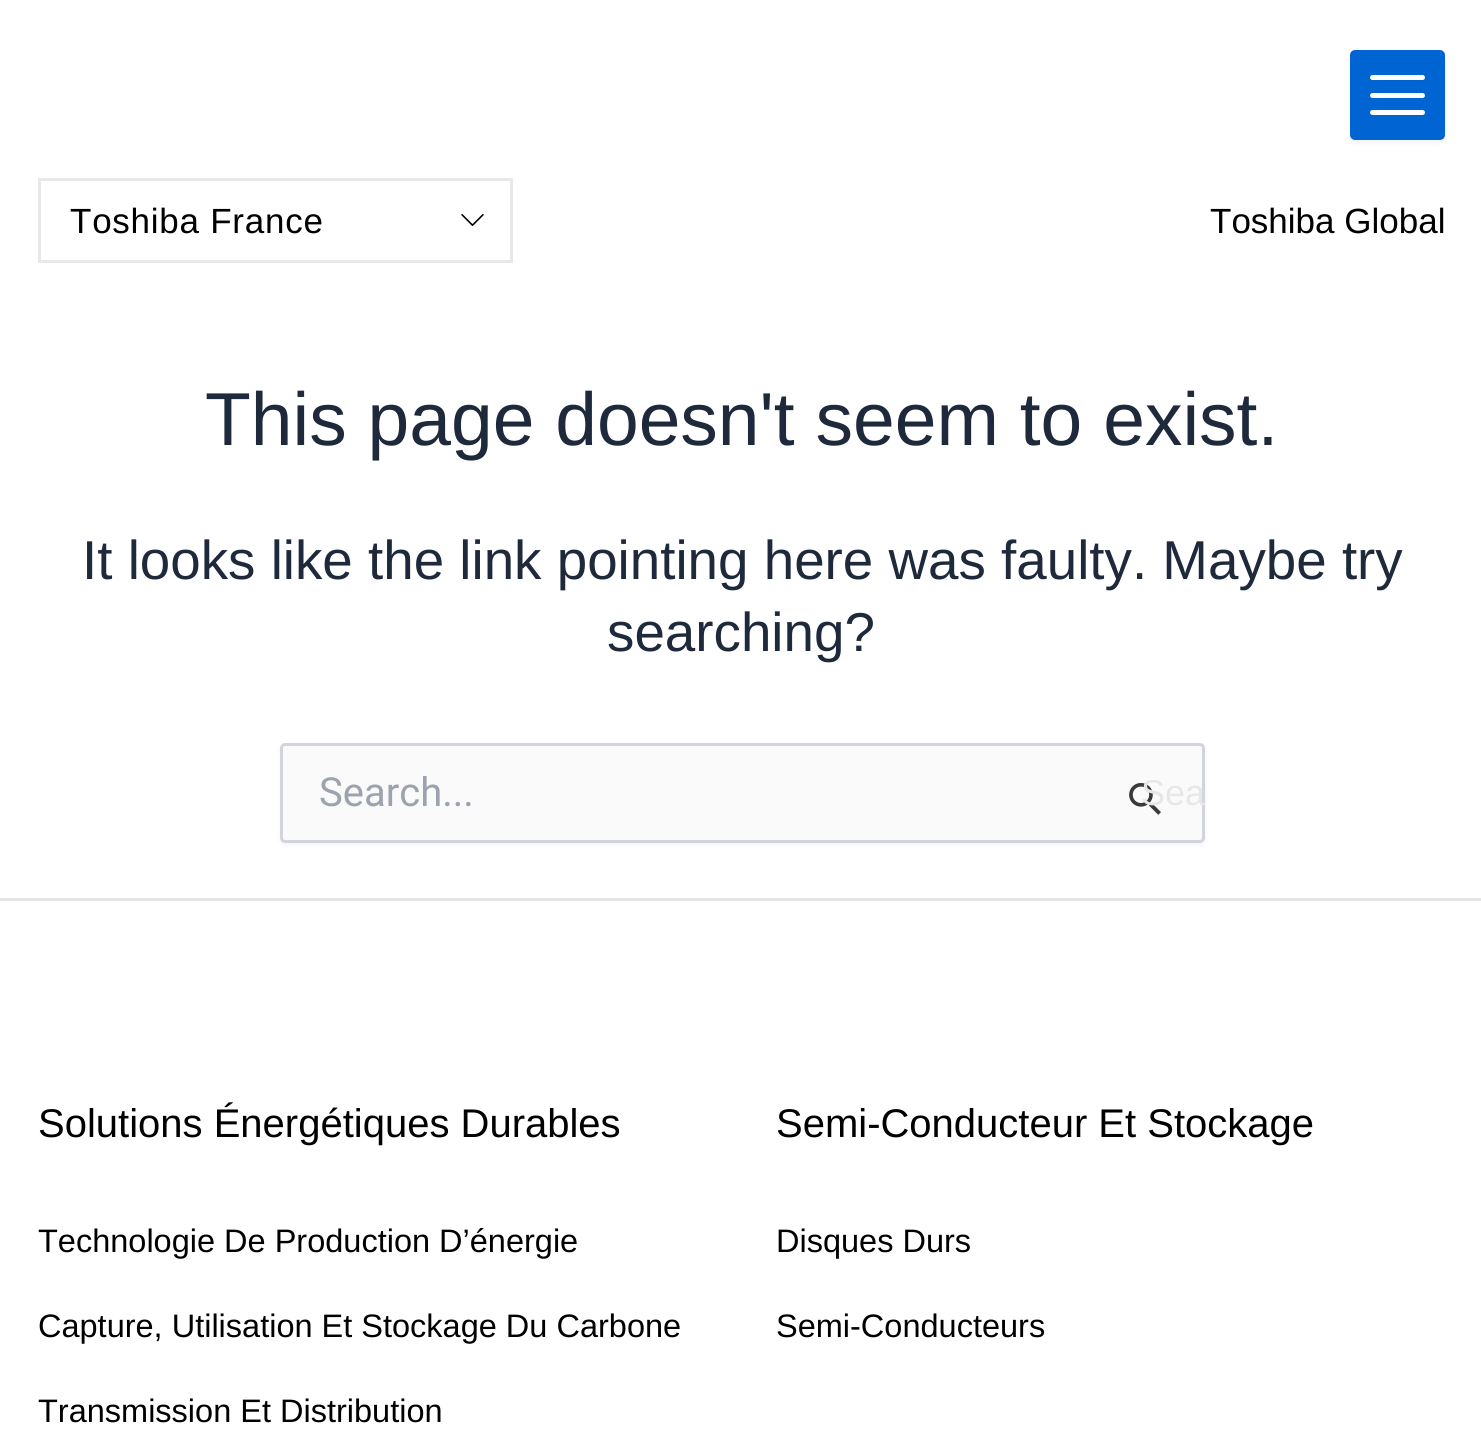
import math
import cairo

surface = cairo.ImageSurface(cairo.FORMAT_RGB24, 1481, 1455)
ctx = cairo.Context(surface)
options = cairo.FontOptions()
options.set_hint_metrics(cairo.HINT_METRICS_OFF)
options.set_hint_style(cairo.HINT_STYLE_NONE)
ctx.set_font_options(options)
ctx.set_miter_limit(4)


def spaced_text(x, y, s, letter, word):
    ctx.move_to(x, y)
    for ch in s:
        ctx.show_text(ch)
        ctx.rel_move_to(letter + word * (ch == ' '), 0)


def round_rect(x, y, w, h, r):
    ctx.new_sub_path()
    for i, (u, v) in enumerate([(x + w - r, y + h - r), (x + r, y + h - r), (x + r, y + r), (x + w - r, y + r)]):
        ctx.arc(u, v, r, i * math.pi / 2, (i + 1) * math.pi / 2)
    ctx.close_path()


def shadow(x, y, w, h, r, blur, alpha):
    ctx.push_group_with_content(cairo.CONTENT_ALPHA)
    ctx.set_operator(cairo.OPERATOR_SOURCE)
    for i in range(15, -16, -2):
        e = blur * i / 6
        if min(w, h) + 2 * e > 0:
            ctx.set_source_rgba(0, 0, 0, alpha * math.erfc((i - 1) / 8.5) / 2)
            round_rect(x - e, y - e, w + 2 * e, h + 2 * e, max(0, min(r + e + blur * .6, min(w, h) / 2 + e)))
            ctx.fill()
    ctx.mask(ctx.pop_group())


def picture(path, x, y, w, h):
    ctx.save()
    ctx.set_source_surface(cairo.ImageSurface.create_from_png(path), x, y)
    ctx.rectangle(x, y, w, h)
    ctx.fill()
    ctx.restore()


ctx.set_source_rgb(1, 1, 1)
ctx.paint()
ctx.set_source_rgb(0, 0, 0)
shadow(1350, 53, 95, 90, 5, 2.5, 0.05)
ctx.set_source_rgb(0, 0.392, 0.824)
round_rect(1351.5, 51.5, 92, 87, 3.5)
ctx.fill_preserve()
ctx.set_line_width(3)
ctx.stroke()
ctx.set_source_rgb(1, 1, 1)
round_rect(1370, 75, 55, 5, 2.5)
ctx.fill()
round_rect(1370, 93, 55, 5, 2.5)
ctx.fill()
round_rect(1370, 110, 55, 5, 2.5)
ctx.fill()
picture("img1.png", 461, 214, 23, 12)
ctx.rectangle(39.5, 179.5, 472, 82)
ctx.set_source_rgb(0.91, 0.91, 0.91)
ctx.stroke()
ctx.select_font_face("Liberation Sans")
ctx.set_font_size(35)
ctx.set_source_rgb(0, 0, 0)
spaced_text(70, 233, "Toshiba France", 0.75, 0)
ctx.move_to(1210, 233)
ctx.show_text("Toshiba Global")
ctx.set_font_size(75)
ctx.set_source_rgb(0.118, 0.161, 0.231)
ctx.move_to(205, 445)
ctx.show_text("This page doesn't seem to exist.")
ctx.set_font_size(54.75)
ctx.move_to(82, 579)
ctx.show_text("It looks like the link pointing here was faulty. Maybe try")
ctx.move_to(607, 651)
ctx.show_text("searching?")
ctx.set_source_rgb(0, 0, 0)
shadow(280, 745, 925, 100, 5, 2.5, 0.05)
ctx.set_source_rgb(0.98, 0.98, 0.98)
round_rect(281.5, 744.5, 922, 97, 3.5)
ctx.fill_preserve()
ctx.set_source_rgb(0.82, 0.835, 0.859)
ctx.stroke()
ctx.select_font_face("Roboto")
ctx.set_font_size(40)
ctx.set_source_rgb(0.612, 0.639, 0.686)
ctx.move_to(319, 806)
ctx.show_text("Search...")
picture("img2.png", 1129, 783, 32, 32)
ctx.save()
round_rect(1093, 743, 112, 100, 5)
ctx.clip()
ctx.select_font_face("Liberation Sans")
ctx.set_font_size(36)
ctx.set_source_rgb(0.906, 0.906, 0.906)
ctx.move_to(1141, 805)
ctx.show_text("Sea")
ctx.restore()
ctx.set_source_rgb(0.894, 0.894, 0.894)
ctx.rectangle(0, 898, 1481, 3)
ctx.fill()
ctx.select_font_face("Liberation Sans")
ctx.set_source_rgb(0, 0, 0)
ctx.move_to(38, 1137)
ctx.show_text("Solutions Énergétiques Durables")
ctx.set_font_size(32.5)
ctx.move_to(38, 1252)
ctx.show_text("Technologie De Production D’énergie")
ctx.move_to(38, 1337)
ctx.show_text("Capture, Utilisation Et Stockage Du Carbone")
ctx.move_to(38, 1422)
ctx.show_text("Transmission Et Distribution")
ctx.set_font_size(40)
ctx.move_to(776, 1137)
ctx.show_text("Semi-Conducteur Et Stockage")
ctx.set_font_size(32.5)
ctx.move_to(776, 1252)
ctx.show_text("Disques Durs")
ctx.move_to(776, 1337)
ctx.show_text("Semi-Conducteurs")
surface.write_to_png("page.png")
